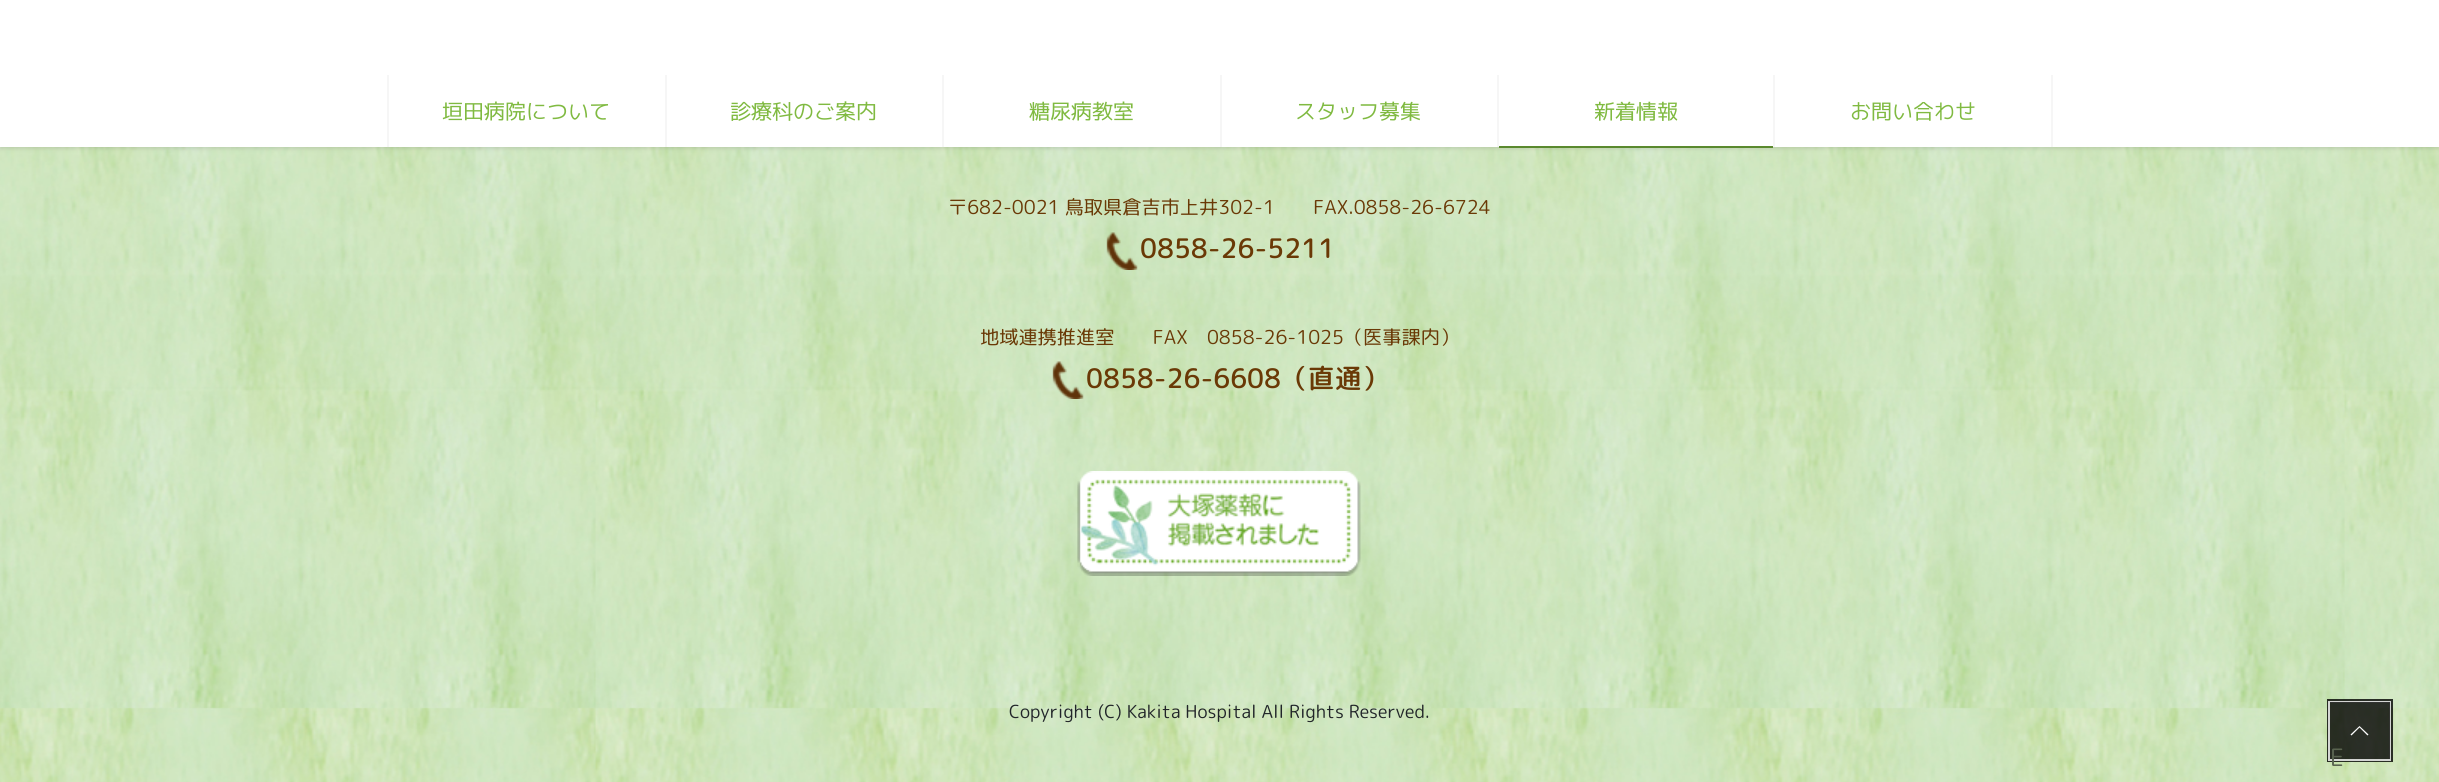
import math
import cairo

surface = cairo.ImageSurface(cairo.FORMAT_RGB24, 2439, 782)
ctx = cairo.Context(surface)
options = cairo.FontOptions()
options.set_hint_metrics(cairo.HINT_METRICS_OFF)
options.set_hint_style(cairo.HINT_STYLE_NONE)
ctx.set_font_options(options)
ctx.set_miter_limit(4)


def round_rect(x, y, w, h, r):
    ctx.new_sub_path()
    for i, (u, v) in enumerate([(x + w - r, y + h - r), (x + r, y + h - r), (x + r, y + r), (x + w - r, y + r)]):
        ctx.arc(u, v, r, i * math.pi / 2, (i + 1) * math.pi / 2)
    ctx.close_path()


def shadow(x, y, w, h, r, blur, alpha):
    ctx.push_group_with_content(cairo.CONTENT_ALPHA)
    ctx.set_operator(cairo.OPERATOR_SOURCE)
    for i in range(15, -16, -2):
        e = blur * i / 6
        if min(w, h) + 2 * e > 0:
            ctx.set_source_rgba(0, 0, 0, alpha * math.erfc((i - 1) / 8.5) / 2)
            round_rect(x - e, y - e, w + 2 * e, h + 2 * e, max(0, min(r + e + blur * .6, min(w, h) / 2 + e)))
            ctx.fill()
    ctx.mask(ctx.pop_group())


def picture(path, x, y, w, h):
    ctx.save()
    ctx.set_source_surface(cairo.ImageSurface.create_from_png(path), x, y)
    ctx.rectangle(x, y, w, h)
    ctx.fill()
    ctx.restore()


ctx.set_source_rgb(1, 1, 1)
ctx.paint()
picture("img1.png", 0, 147, 2439, 635)
ctx.set_source_rgb(0, 0, 0)
shadow(0, 2, 2439, 147, 0, 2, 0.1)
ctx.set_source_rgb(1, 1, 1)
ctx.rectangle(0, 0, 2439, 147)
ctx.fill()
ctx.set_source_rgb(0.961, 0.961, 0.961)
ctx.rectangle(387, 75, 2, 72)
ctx.fill()
ctx.select_font_face("M PLUS 1p")
ctx.set_font_size(21)
ctx.set_source_rgb(0.502, 0.729, 0.255)
ctx.move_to(442, 119)
ctx.show_text("垣田病院について")
ctx.set_source_rgb(0.961, 0.961, 0.961)
ctx.rectangle(665, 75, 2, 72)
ctx.fill()
ctx.set_source_rgb(0.502, 0.729, 0.255)
ctx.move_to(730, 119)
ctx.show_text("診療科のご案内")
ctx.set_source_rgb(0.961, 0.961, 0.961)
ctx.rectangle(942, 75, 2, 72)
ctx.fill()
ctx.set_source_rgb(0.502, 0.729, 0.255)
ctx.move_to(1029, 119)
ctx.show_text("糖尿病教室")
ctx.set_source_rgb(0.961, 0.961, 0.961)
ctx.rectangle(1220, 75, 2, 72)
ctx.fill()
ctx.set_source_rgb(0.502, 0.729, 0.255)
ctx.move_to(1295, 119)
ctx.show_text("スタッフ募集")
ctx.set_source_rgb(0.961, 0.961, 0.961)
ctx.rectangle(1497, 75, 2, 72)
ctx.fill()
ctx.set_source_rgb(0.502, 0.729, 0.255)
ctx.move_to(1594, 119)
ctx.show_text("新着情報")
ctx.set_source_rgb(0.353, 0.537, 0.18)
ctx.rectangle(1499, 146, 274, 2)
ctx.fill()
ctx.set_source_rgb(0.961, 0.961, 0.961)
ctx.rectangle(2051, 75, 2, 72)
ctx.fill()
ctx.rectangle(1773, 75, 2, 72)
ctx.fill()
ctx.set_source_rgb(0.502, 0.729, 0.255)
ctx.move_to(1850, 119)
ctx.show_text("お問い合わせ")
ctx.select_font_face("Rounded Mplus 1c")
ctx.set_font_size(19.2)
ctx.set_source_rgb(0.416, 0.224, 0.024)
ctx.move_to(948, 214)
ctx.show_text("〒682-0021 鳥取県倉吉市上井302-1　　FAX.0858-26-6724")
picture("img2.png", 1106, 232, 32, 38)
ctx.select_font_face("Rounded Mplus 1c Medium")
ctx.set_font_size(26.9)
ctx.move_to(1140, 258)
ctx.show_text("0858-26-5211")
ctx.select_font_face("Rounded Mplus 1c")
ctx.set_font_size(19.2)
ctx.move_to(980, 344)
ctx.show_text("地域連携推進室　　FAX　0858-26-1025（医事課内）")
picture("img3.png", 1052, 361, 32, 38)
ctx.select_font_face("Rounded Mplus 1c Medium")
ctx.set_font_size(26.9)
ctx.move_to(1086, 388)
ctx.show_text("0858-26-6608（直通）")
picture("img4.png", 1077, 471, 284, 105)
ctx.select_font_face("Rounded Mplus 1c")
ctx.set_font_size(18)
ctx.set_source_rgb(0.129, 0.145, 0.161)
ctx.move_to(1009, 718)
ctx.show_text("Copyright (C) Kakita Hospital All Rights Reserved.")
ctx.rectangle(2328.5, 700.5, 63, 60)
ctx.set_source_rgba(0, 0, 0, 0.8)
ctx.set_line_width(3)
ctx.stroke()
ctx.rectangle(2329, 702, 61, 58)
ctx.set_source_rgba(1, 1, 1, 0.8)
ctx.set_line_width(2)
ctx.stroke()
ctx.set_source_rgba(0, 0, 0, 0.8)
ctx.rectangle(2330, 702, 60, 57)
ctx.fill()
ctx.set_source_rgb(1, 1, 1)
ctx.new_path()
ctx.move_to(2368.5, 734.5)
ctx.line_to(2367.5, 735.5)
ctx.line_to(2359.5, 727.5)
ctx.line_to(2351.5, 735.5)
ctx.line_to(2350.5, 734.5)
ctx.line_to(2359.5, 726)
ctx.close_path()
ctx.fill()
ctx.set_font_size(24)
ctx.set_source_rgb(0.349, 0.388, 0.31)
ctx.move_to(2330, 766)
ctx.show_text("E")
surface.write_to_png("page.png")
